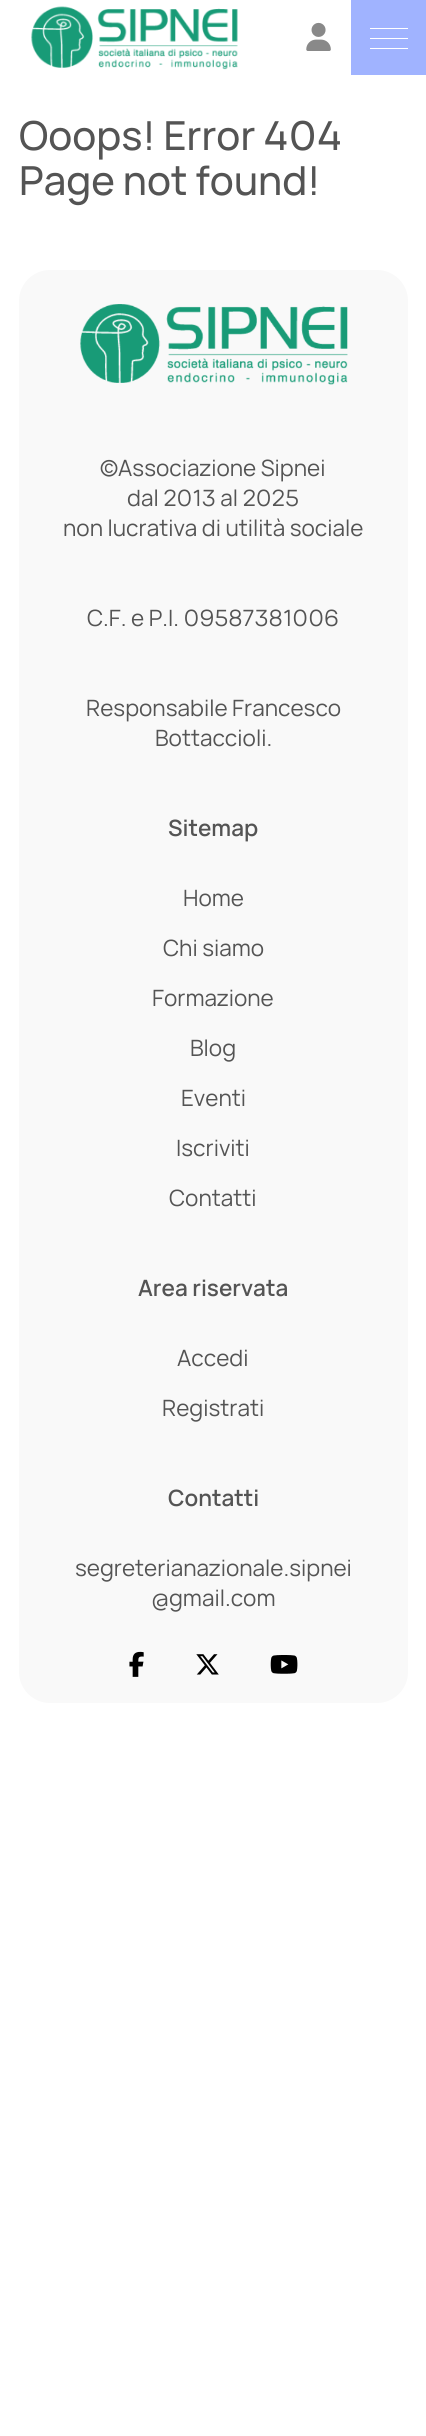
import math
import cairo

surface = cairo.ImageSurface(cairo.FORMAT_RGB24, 426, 2436)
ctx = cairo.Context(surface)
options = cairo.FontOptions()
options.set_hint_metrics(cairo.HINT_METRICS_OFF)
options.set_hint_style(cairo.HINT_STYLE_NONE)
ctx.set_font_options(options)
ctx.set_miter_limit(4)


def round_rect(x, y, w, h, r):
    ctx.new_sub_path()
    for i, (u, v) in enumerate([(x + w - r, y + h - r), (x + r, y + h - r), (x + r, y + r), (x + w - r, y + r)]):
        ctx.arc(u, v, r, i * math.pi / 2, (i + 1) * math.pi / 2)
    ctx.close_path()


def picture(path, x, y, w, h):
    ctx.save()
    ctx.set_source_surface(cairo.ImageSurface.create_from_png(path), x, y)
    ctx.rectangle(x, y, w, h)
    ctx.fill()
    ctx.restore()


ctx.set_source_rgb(1, 1, 1)
ctx.paint()
picture("img1.png", 31, 6, 207, 64)
picture("img2.png", 306, 22, 25, 29)
ctx.set_source_rgb(0.627, 0.702, 1)
ctx.rectangle(351, 0, 75, 75)
ctx.fill()
ctx.set_source_rgb(1, 1, 1)
ctx.rectangle(370, 38, 38, 1)
ctx.fill()
ctx.rectangle(370, 28, 38, 1)
ctx.fill()
ctx.rectangle(370, 48, 38, 1)
ctx.fill()
ctx.select_font_face("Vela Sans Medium")
ctx.set_font_size(40)
ctx.set_source_rgb(0.329, 0.329, 0.329)
ctx.move_to(19, 150)
ctx.show_text("Ooops! Error 404")
ctx.move_to(19, 195)
ctx.show_text("Page not found!")
ctx.set_source_rgb(0.973, 0.973, 0.973)
round_rect(19, 270, 389, 1433, 31)
ctx.fill()
picture("img3.png", 80, 304, 268, 81)
ctx.select_font_face("Vela Sans")
ctx.set_font_size(22.5)
ctx.set_source_rgb(0.329, 0.329, 0.329)
ctx.move_to(100, 476)
ctx.show_text("©Associazione Sipnei")
ctx.move_to(127, 506)
ctx.show_text("dal 2013 al 2025")
ctx.move_to(63, 536)
ctx.show_text("non lucrativa di utilità sociale")
ctx.move_to(87, 626)
ctx.show_text("C.F. e P.I. 09587381006")
ctx.move_to(86, 716)
ctx.show_text("Responsabile Francesco")
ctx.move_to(155, 746)
ctx.show_text("Bottaccioli.")
ctx.select_font_face("Vela Sans SemiBold")
ctx.move_to(168, 836)
ctx.show_text("Sitemap")
ctx.select_font_face("Vela Sans")
ctx.move_to(183, 906)
ctx.show_text("Home")
ctx.move_to(163, 956)
ctx.show_text("Chi siamo")
ctx.move_to(152, 1006)
ctx.show_text("Formazione")
ctx.move_to(190, 1056)
ctx.show_text("Blog")
ctx.move_to(181, 1106)
ctx.show_text("Eventi")
ctx.move_to(176, 1156)
ctx.show_text("Iscriviti")
ctx.move_to(169, 1206)
ctx.show_text("Contatti")
ctx.select_font_face("Vela Sans SemiBold")
ctx.move_to(138, 1296)
ctx.show_text("Area riservata")
ctx.select_font_face("Vela Sans")
ctx.move_to(177, 1366)
ctx.show_text("Accedi")
ctx.move_to(162, 1416)
ctx.show_text("Registrati")
ctx.select_font_face("Vela Sans SemiBold")
ctx.move_to(168, 1506)
ctx.show_text("Contatti")
ctx.select_font_face("Vela Sans")
ctx.move_to(75, 1576)
ctx.show_text("segreterianazionale.sipnei")
ctx.move_to(151, 1606)
ctx.show_text("@gmail.com")
picture("img4.png", 129, 1651, 15, 26)
picture("img5.png", 196, 1654, 23, 21)
picture("img6.png", 270, 1655, 28, 19)
surface.write_to_png("page.png")
